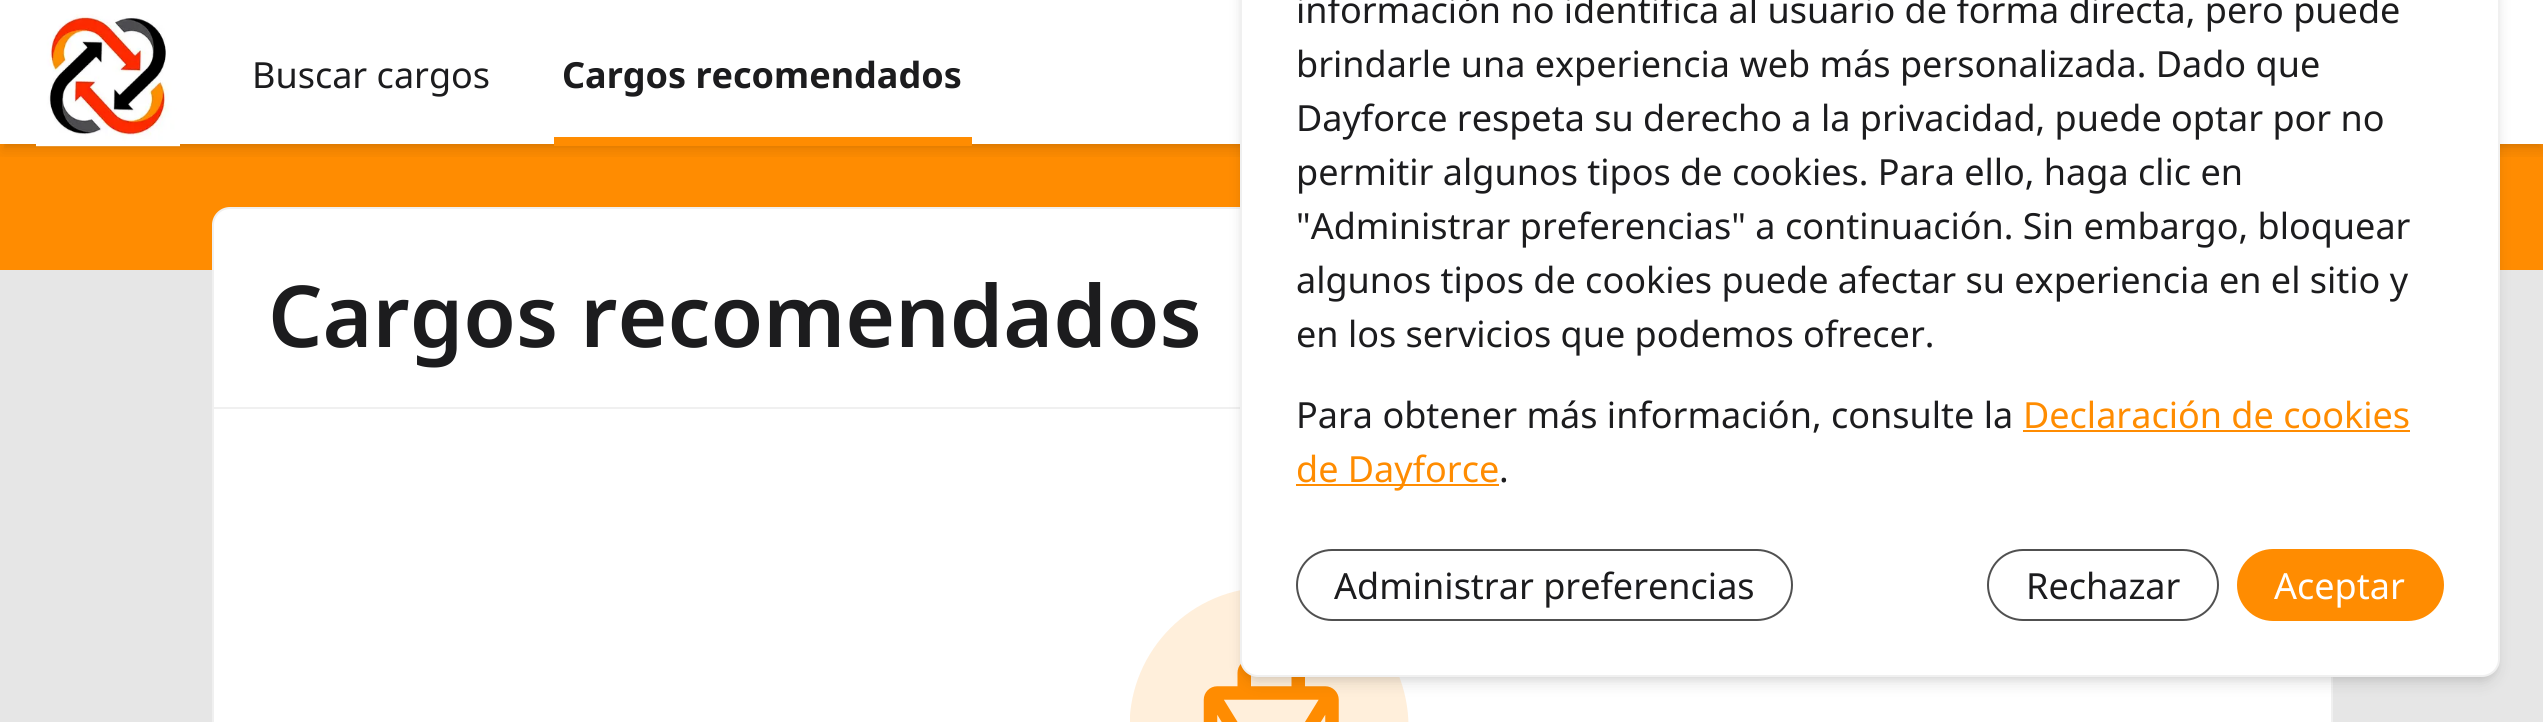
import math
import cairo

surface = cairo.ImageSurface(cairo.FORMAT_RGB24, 2543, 722)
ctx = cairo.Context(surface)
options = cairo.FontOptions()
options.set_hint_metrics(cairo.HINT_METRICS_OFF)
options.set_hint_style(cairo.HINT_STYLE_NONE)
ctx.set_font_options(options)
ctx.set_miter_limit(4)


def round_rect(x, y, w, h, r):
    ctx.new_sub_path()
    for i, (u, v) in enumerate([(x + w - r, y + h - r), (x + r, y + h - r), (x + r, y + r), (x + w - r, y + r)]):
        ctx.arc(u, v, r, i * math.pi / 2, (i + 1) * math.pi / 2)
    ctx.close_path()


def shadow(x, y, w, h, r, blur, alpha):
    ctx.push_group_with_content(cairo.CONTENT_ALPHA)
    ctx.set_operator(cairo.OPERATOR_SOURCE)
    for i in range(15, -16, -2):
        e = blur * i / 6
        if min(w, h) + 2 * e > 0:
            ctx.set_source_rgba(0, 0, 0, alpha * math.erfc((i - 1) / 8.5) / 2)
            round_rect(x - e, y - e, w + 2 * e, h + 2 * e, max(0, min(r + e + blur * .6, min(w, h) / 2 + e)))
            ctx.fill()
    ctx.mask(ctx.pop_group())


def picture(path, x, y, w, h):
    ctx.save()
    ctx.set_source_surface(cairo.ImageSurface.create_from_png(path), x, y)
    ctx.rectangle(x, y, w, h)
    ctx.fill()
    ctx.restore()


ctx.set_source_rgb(1, 1, 1)
ctx.paint()
ctx.set_source_rgb(1, 0.549, 0.004)
ctx.rectangle(0, 144, 2543, 126)
ctx.fill()
ctx.save()
ctx.rectangle(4, 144, 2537, 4)
ctx.clip()
ctx.set_source_rgb(0, 0, 0)
shadow(5, 9, 2535, 135, 0, 4.5, 0.1)
ctx.restore()
ctx.save()
ctx.rectangle(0, 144, 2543, 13)
ctx.clip()
ctx.set_source_rgb(0, 0, 0)
shadow(2, 11, 2541, 140, 0, 7, 0.1)
ctx.restore()
picture("img1.png", 36, 14, 144, 133)
ctx.select_font_face("Noto Sans")
ctx.set_font_size(36)
ctx.set_source_rgb(0.11, 0.11, 0.118)
ctx.move_to(252, 88)
ctx.show_text("Buscar cargos")
ctx.select_font_face("Noto Sans", cairo.FONT_SLANT_NORMAL, cairo.FONT_WEIGHT_BOLD)
ctx.move_to(562, 88)
ctx.show_text("Cargos recomendados")
ctx.set_source_rgb(1, 0.549, 0.004)
ctx.rectangle(554, 137, 418, 9)
ctx.fill()
ctx.set_source_rgb(0.902, 0.902, 0.902)
ctx.rectangle(0, 270, 2543, 452)
ctx.fill()
ctx.set_source_rgb(1, 1, 1)
round_rect(213, 208, 2119, 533, 17)
ctx.fill_preserve()
ctx.set_source_rgb(0.941, 0.941, 0.941)
ctx.stroke()
ctx.rectangle(214, 407, 1026, 2)
ctx.fill()
ctx.select_font_face("Noto Sans SemiBold")
ctx.set_font_size(85.5)
ctx.set_source_rgb(0.11, 0.11, 0.118)
ctx.move_to(268, 347)
ctx.show_text("Cargos recomendados")
picture("img2.png", 1130, 590, 279, 132)
ctx.set_source_rgb(0, 0, 0)
shadow(1244, -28, 1251, 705, 14, 4.5, 0.1)
shadow(1242, -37, 1256, 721, 16, 7, 0.1)
ctx.set_source_rgb(1, 1, 1)
round_rect(1241, -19, 1258, 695, 17)
ctx.fill_preserve()
ctx.set_source_rgb(0.941, 0.941, 0.941)
ctx.stroke()
ctx.select_font_face("Noto Sans")
ctx.set_font_size(36)
ctx.set_source_rgb(0.11, 0.11, 0.118)
ctx.move_to(1296, 23)
ctx.show_text("información no identifica al usuario de forma directa, pero puede")
ctx.move_to(1296, 77)
ctx.show_text("brindarle una experiencia web más personalizada. Dado que")
ctx.move_to(1296, 131)
ctx.show_text("Dayforce respeta su derecho a la privacidad, puede optar por no")
ctx.move_to(1296, 185)
ctx.show_text("permitir algunos tipos de cookies. Para ello, haga clic en")
ctx.move_to(1296, 239)
ctx.show_text("\"Administrar preferencias\" a continuación. Sin embargo, bloquear")
ctx.move_to(1296, 293)
ctx.show_text("algunos tipos de cookies puede afectar su experiencia en el sitio y")
ctx.move_to(1296, 347)
ctx.show_text("en los servicios que podemos ofrecer.")
ctx.move_to(1296, 428)
ctx.show_text("Para obtener más información, consulte la")
ctx.set_source_rgb(1, 0.549, 0.004)
ctx.move_to(2023, 428)
ctx.show_text("Declaración de cookies")
ctx.rectangle(2023, 430, 387, 2)
ctx.fill()
ctx.rectangle(1296, 484, 203, 2)
ctx.fill()
ctx.move_to(1296, 482)
ctx.show_text("de Dayforce")
ctx.set_source_rgb(0.11, 0.11, 0.118)
ctx.move_to(1499, 482)
ctx.show_text(".")
round_rect(1297, 550, 495, 70, 35)
ctx.set_source_rgb(0.314, 0.314, 0.314)
ctx.stroke()
ctx.set_source_rgb(0.11, 0.11, 0.118)
ctx.move_to(1334, 599)
ctx.show_text("Administrar preferencias")
round_rect(1988, 550, 230, 70, 35)
ctx.set_source_rgb(0.314, 0.314, 0.314)
ctx.stroke()
ctx.set_source_rgb(0.11, 0.11, 0.118)
ctx.move_to(2026, 599)
ctx.show_text("Rechazar")
ctx.set_source_rgb(1, 0.549, 0.004)
round_rect(2237, 549, 207, 72, 36)
ctx.fill()
ctx.set_source_rgb(1, 1, 1)
ctx.move_to(2274, 599)
ctx.show_text("Aceptar")
surface.write_to_png("page.png")
